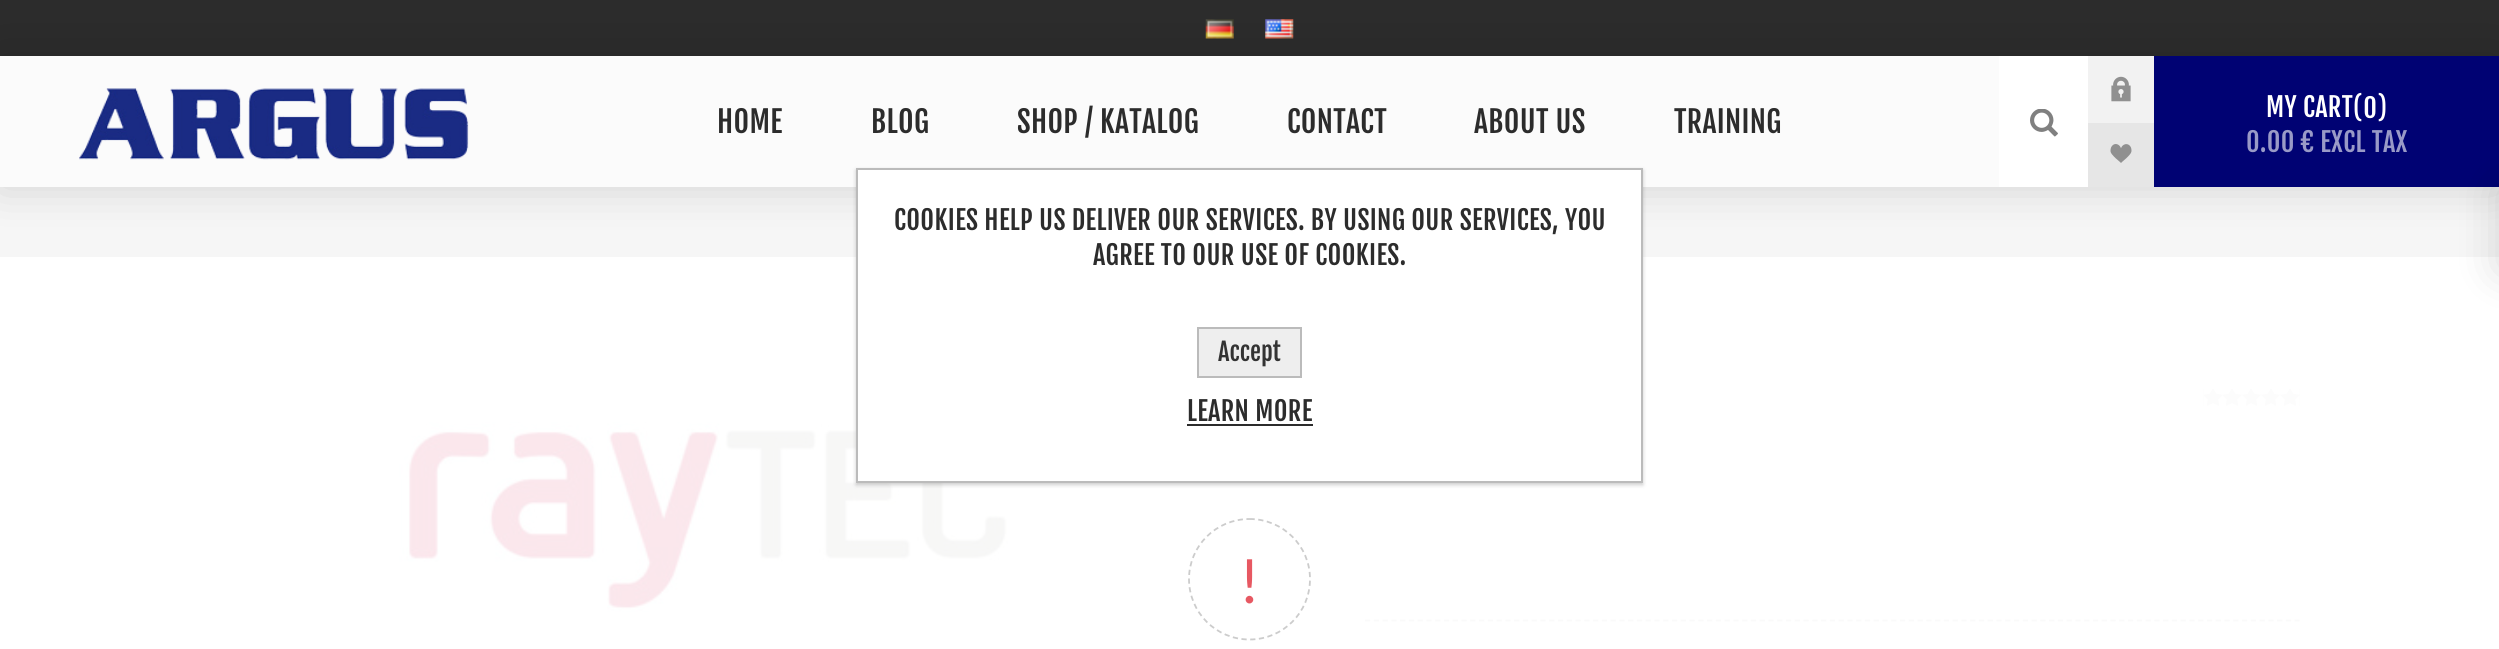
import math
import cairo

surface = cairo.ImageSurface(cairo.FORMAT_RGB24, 2499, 649)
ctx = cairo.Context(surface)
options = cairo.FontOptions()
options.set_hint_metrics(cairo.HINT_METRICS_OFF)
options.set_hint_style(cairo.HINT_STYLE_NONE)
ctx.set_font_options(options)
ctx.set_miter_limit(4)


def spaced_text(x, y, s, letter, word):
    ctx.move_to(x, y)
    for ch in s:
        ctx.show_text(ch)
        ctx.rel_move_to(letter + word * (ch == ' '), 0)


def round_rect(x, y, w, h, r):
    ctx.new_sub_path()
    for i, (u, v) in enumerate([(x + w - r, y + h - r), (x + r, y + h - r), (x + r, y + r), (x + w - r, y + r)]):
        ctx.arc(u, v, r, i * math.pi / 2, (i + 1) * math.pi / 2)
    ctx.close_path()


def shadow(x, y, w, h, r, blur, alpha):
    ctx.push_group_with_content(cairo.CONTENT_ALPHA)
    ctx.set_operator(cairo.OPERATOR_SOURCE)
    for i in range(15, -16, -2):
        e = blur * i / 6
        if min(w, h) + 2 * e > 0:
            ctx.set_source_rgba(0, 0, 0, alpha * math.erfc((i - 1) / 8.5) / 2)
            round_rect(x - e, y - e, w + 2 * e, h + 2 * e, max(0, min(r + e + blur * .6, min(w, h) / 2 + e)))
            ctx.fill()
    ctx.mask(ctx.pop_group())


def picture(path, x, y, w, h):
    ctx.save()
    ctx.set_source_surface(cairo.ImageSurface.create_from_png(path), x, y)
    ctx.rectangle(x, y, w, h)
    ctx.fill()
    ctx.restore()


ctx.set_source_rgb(1, 1, 1)
ctx.paint()
ctx.set_source_rgb(0.173, 0.173, 0.173)
ctx.rectangle(0, 0, 2499, 56)
ctx.fill()
picture("img1.png", 1205, 19, 29, 20)
picture("img2.png", 1265, 19, 29, 20)
ctx.set_source_rgb(0.961, 0.961, 0.961)
ctx.rectangle(0, 187, 2499, 70)
ctx.fill()
ctx.set_source_rgb(0, 0, 0)
shadow(0, 56, 2499, 131, 0, 22, 0.15)
ctx.set_source_rgb(0.984, 0.984, 0.984)
ctx.rectangle(0, 56, 1999, 131)
ctx.fill()
picture("img3.png", 79, 88, 390, 72)
ctx.select_font_face("Fjalla One")
ctx.set_font_size(29.75)
ctx.set_source_rgb(0.173, 0.173, 0.173)
spaced_text(717, 133, "HOME", 0.35, 0)
spaced_text(871, 133, "BLOG", 0.35, 0)
spaced_text(1017, 133, "SHOP / KATALOG", 0.35, 0)
spaced_text(1287, 133, "CONTACT", 0.35, 0)
spaced_text(1474, 133, "ABOUT US", 0.35, 0)
spaced_text(1674, 133, "TRAINING", 0.35, 0)
ctx.set_source_rgb(1, 1, 1)
ctx.rectangle(1999, 56, 89, 131)
ctx.fill()
picture("img4.png", 2030, 109, 28, 28)
ctx.set_source_rgb(0.949, 0.949, 0.949)
ctx.rectangle(2088, 56, 66, 67)
ctx.fill()
picture("img5.png", 2111, 76, 20, 26)
ctx.set_source_rgb(0.902, 0.902, 0.902)
ctx.rectangle(2088, 123, 66, 64)
ctx.fill()
picture("img6.png", 2110, 144, 22, 19)
ctx.set_source_rgb(0, 0.008, 0.451)
ctx.rectangle(2154, 56, 345, 131)
ctx.fill()
ctx.set_font_size(26.25)
ctx.set_source_rgb(1, 1, 1)
spaced_text(2266, 117, "MY CART", 0.35, 0)
spaced_text(2353, 118, "(0)", 0.35, 0)
ctx.set_source_rgb(0.6, 0.604, 0.78)
spaced_text(2246, 152, "0.00 € EXCL TAX", 0.35, 0)
ctx.set_source_rgb(0, 0, 0)
shadow(2499, 187, 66, 83, 0, 22, 0.15)
picture("img7.png", 398, 379, 686, 234)
ctx.set_source_rgb(0.988, 0.988, 0.988)
ctx.rectangle(2203, 389, 97, 17)
ctx.fill()
picture("img8.png", 2203, 389, 97, 17)
ctx.new_path()
ctx.move_to(1249.5, 519)
ctx.curve_to(1283, 519, 1310, 546, 1310, 579)
ctx.curve_to(1310, 612.5, 1283, 639.5, 1249.5, 639.5)
ctx.curve_to(1216, 639.5, 1189, 612.5, 1189, 579)
ctx.curve_to(1189, 546, 1216, 519, 1249.5, 519)
ctx.close_path()
ctx.set_source_rgb(0.8, 0.8, 0.8)
ctx.set_line_width(1.8)
ctx.set_dash([5.25, 3.5])
ctx.stroke()
ctx.select_font_face("Lato")
ctx.set_font_size(61)
ctx.set_source_rgb(0.906, 0.345, 0.384)
spaced_text(1239, 603, "!", 0.35, 0)
ctx.new_path()
ctx.move_to(1365, 620.5)
ctx.line_to(2299.5, 620.5)
ctx.set_source_rgb(0.98, 0.98, 0.98)
ctx.set_dash([5.25, 3.52])
ctx.stroke()
ctx.set_source_rgb(0, 0, 0)
shadow(856, 170, 787, 315, 0, 2, 0.2)
ctx.set_source_rgb(1, 1, 1)
ctx.rectangle(857, 169, 785, 313)
ctx.fill_preserve()
ctx.set_source_rgb(0.733, 0.733, 0.733)
ctx.set_line_width(2)
ctx.set_dash([])
ctx.stroke()
ctx.select_font_face("Fjalla One")
ctx.set_font_size(26.25)
ctx.set_source_rgb(0.173, 0.173, 0.173)
spaced_text(894, 230, "COOKIES HELP US DELIVER OUR SERVICES. BY USING OUR SERVICES, YOU", 0.35, 0)
spaced_text(1093, 265, "AGREE TO OUR USE OF COOKIES.", 0.35, 0)
ctx.set_source_rgb(0.933, 0.933, 0.933)
ctx.rectangle(1198, 328, 103, 49)
ctx.fill_preserve()
ctx.set_source_rgb(0.733, 0.733, 0.733)
ctx.stroke()
ctx.set_font_size(24.5)
ctx.set_source_rgb(0.2, 0.2, 0.2)
ctx.move_to(1218, 361)
ctx.show_text("Accept")
ctx.set_font_size(26.25)
ctx.set_source_rgb(0.173, 0.173, 0.173)
spaced_text(1187, 421, "LEARN MORE", 0.35, 0)
ctx.rectangle(1187, 424, 126, 2)
ctx.fill()
surface.write_to_png("page.png")
